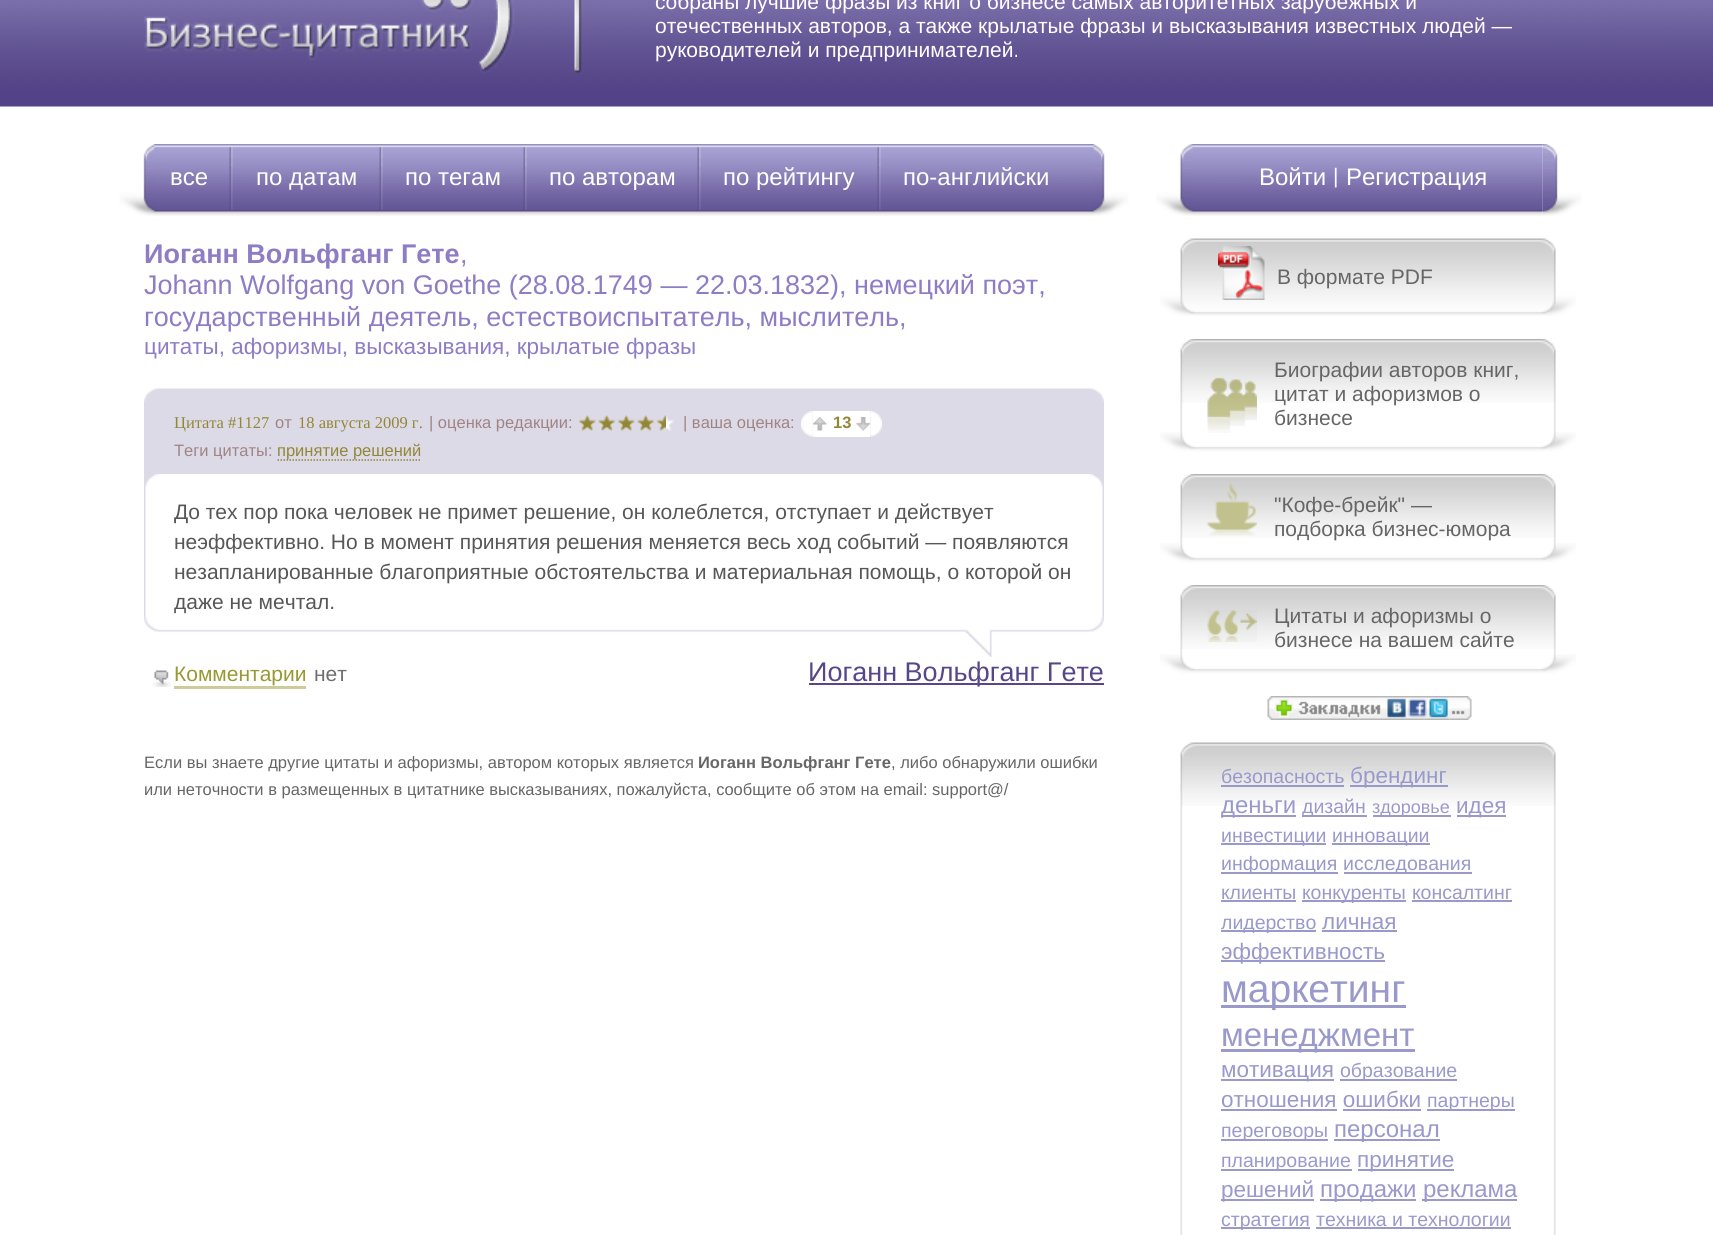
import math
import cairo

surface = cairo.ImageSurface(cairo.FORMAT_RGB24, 1713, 1235)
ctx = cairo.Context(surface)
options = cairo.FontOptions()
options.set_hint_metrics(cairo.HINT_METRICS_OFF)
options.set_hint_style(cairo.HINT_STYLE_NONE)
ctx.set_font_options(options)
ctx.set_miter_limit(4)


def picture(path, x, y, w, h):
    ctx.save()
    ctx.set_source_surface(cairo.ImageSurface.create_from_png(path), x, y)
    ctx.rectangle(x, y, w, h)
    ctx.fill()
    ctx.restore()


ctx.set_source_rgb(1, 1, 1)
ctx.paint()
picture("img1.png", 0, 0, 1713, 107)
picture("img2.png", 144, 0, 439, 74)
ctx.select_font_face("Liberation Sans")
ctx.set_font_size(21)
ctx.set_source_rgb(1, 1, 1)
ctx.move_to(655, 9)
ctx.show_text("собраны лучшие фразы из книг о бизнесе самых авторитетных зарубежных и")
ctx.move_to(655, 33)
ctx.show_text("отечественных авторов, а также крылатые фразы и высказывания известных людей —")
ctx.move_to(655, 57)
ctx.show_text("руководителей и предпринимателей.")
picture("img3.png", 119, 144, 36, 72)
picture("img4.png", 1093, 144, 36, 72)
picture("img5.png", 154, 144, 940, 72)
ctx.set_font_size(24)
ctx.move_to(170, 185)
ctx.show_text("все")
picture("img6.png", 229, 146, 4, 64)
ctx.move_to(256, 185)
ctx.show_text("по датам")
picture("img7.png", 379, 146, 4, 64)
ctx.move_to(405, 185)
ctx.show_text("по тегам")
picture("img7.png", 523, 146, 4, 64)
ctx.move_to(549, 185)
ctx.show_text("по авторам")
picture("img7.png", 697, 146, 4, 64)
ctx.move_to(723, 185)
ctx.show_text("по рейтингу")
picture("img8.png", 877, 146, 4, 64)
ctx.move_to(903, 185)
ctx.show_text("по-английски")
ctx.select_font_face("Liberation Sans", cairo.FONT_SLANT_NORMAL, cairo.FONT_WEIGHT_BOLD)
ctx.set_font_size(27)
ctx.set_source_rgb(0.553, 0.49, 0.769)
ctx.move_to(144, 263)
ctx.show_text("Иоганн Вольфганг Гете")
ctx.select_font_face("Liberation Sans")
ctx.move_to(460, 263)
ctx.show_text(",")
ctx.move_to(144, 294)
ctx.show_text("Johann Wolfgang von Goethe (28.08.1749 — 22.03.1832), немецкий поэт,")
ctx.move_to(144, 326)
ctx.show_text("государственный деятель, естествоиспытатель, мыслитель,")
ctx.set_font_size(22.5)
ctx.move_to(144, 354)
ctx.show_text("цитаты, афоризмы, высказывания, крылатые фразы")
ctx.set_source_rgb(0.867, 0.855, 0.906)
ctx.rectangle(144, 402, 960, 72)
ctx.fill()
picture("img9.png", 144, 388, 960, 14)
ctx.select_font_face("Liberation Serif")
ctx.set_font_size(16.5)
ctx.set_source_rgb(0.573, 0.525, 0.216)
ctx.move_to(174, 428)
ctx.show_text("Цитата #1127")
ctx.select_font_face("Liberation Sans")
ctx.set_source_rgb(0.624, 0.518, 0.518)
ctx.move_to(275, 428)
ctx.show_text("от")
ctx.select_font_face("Liberation Serif")
ctx.set_source_rgb(0.573, 0.525, 0.216)
ctx.move_to(298, 428)
ctx.show_text("18 августа 2009 г.")
ctx.select_font_face("Liberation Sans")
ctx.set_source_rgb(0.624, 0.518, 0.518)
ctx.move_to(429, 428)
ctx.show_text("| оценка редакции:")
picture("img10.png", 579, 415, 95, 16)
picture("img11.png", 579, 415, 87, 16)
ctx.move_to(683, 428)
ctx.show_text("| ваша оценка:")
picture("img12.png", 870, 411, 12, 26)
picture("img13.png", 801, 411, 12, 26)
ctx.set_source_rgb(1, 1, 1)
ctx.rectangle(813, 411, 57, 26)
ctx.fill()
picture("img14.png", 813, 417, 14, 14)
ctx.select_font_face("Liberation Sans", cairo.FONT_SLANT_NORMAL, cairo.FONT_WEIGHT_BOLD)
ctx.set_source_rgb(0.573, 0.525, 0.216)
ctx.move_to(833, 428)
ctx.show_text("13")
picture("img15.png", 856, 417, 14, 14)
ctx.select_font_face("Liberation Sans")
ctx.set_source_rgb(0.624, 0.518, 0.518)
ctx.move_to(174, 456)
ctx.show_text("Теги цитаты:")
ctx.new_path()
ctx.move_to(277.5, 460)
ctx.line_to(421.5, 460)
ctx.set_source_rgb(0.573, 0.525, 0.216)
ctx.set_line_width(1.5)
ctx.set_dash([1.5, 1.5])
ctx.stroke()
ctx.move_to(277, 456)
ctx.show_text("принятие решений")
picture("img16.png", 144, 474, 960, 143)
picture("img17.png", 145, 474, 958, 13)
picture("img18.png", 144, 616, 960, 1)
ctx.set_font_size(21)
ctx.set_source_rgb(0.341, 0.341, 0.341)
ctx.move_to(174, 519)
ctx.show_text("До тех пор пока человек не примет решение, он колеблется, отступает и действует")
ctx.move_to(174, 549)
ctx.show_text("неэффективно. Но в момент принятия решения меняется весь ход событий — появляются")
ctx.move_to(174, 579)
ctx.show_text("незапланированные благоприятные обстоятельства и материальная помощь, о которой он")
ctx.move_to(174, 609)
ctx.show_text("даже не мечтал.")
picture("img19.png", 144, 616, 960, 41)
picture("img20.png", 152, 670, 19, 17)
ctx.set_source_rgb(0.8, 0.8, 0.6)
ctx.rectangle(174, 686, 132, 3)
ctx.fill()
ctx.set_source_rgb(0.6, 0.6, 0.2)
ctx.move_to(174, 681)
ctx.show_text("Комментарии")
ctx.set_source_rgb(0.435, 0.435, 0.435)
ctx.move_to(314, 681)
ctx.show_text("нет")
ctx.set_source_rgb(0.337, 0.278, 0.537)
ctx.rectangle(809, 683, 295, 2)
ctx.fill()
ctx.set_font_size(27)
ctx.move_to(808, 681)
ctx.show_text("Иоганн Вольфганг Гете")
ctx.set_font_size(16.5)
ctx.set_source_rgb(0.4, 0.4, 0.4)
ctx.move_to(144, 768)
ctx.show_text("Если вы знаете другие цитаты и афоризмы, автором которых является")
ctx.select_font_face("Liberation Sans", cairo.FONT_SLANT_NORMAL, cairo.FONT_WEIGHT_BOLD)
ctx.move_to(698, 768)
ctx.show_text("Иоганн Вольфганг Гете")
ctx.select_font_face("Liberation Sans")
ctx.move_to(891, 768)
ctx.show_text(", либо обнаружили ошибки")
ctx.move_to(144, 795)
ctx.show_text("или неточности в размещенных в цитатнике высказываниях, пожалуйста, сообщите об этом на email: support@/")
picture("img21.png", 1156, 144, 37, 72)
picture("img22.png", 1542, 144, 40, 72)
picture("img23.png", 1192, 144, 350, 72)
ctx.set_font_size(24)
ctx.set_source_rgb(1, 1, 1)
ctx.move_to(1259, 185)
ctx.show_text("Войти")
ctx.set_font_size(21)
ctx.move_to(1333, 183)
ctx.show_text("|")
ctx.set_font_size(24)
ctx.move_to(1346, 185)
ctx.show_text("Регистрация")
picture("img24.png", 1160, 238, 416, 78)
picture("img25.png", 1218, 246, 47, 54)
ctx.set_font_size(21)
ctx.set_source_rgb(0.4, 0.4, 0.4)
ctx.move_to(1277, 284)
ctx.show_text("В формате PDF")
picture("img26.png", 1180, 403, 376, 49)
picture("img27.png", 1180, 339, 376, 64)
picture("img29.png", 1160, 432, 416, 20)
picture("img28.png", 1207, 377, 50, 56)
ctx.move_to(1274, 377)
ctx.show_text("Биографии авторов книг,")
ctx.move_to(1274, 401)
ctx.show_text("цитат и афоризмов о")
ctx.move_to(1274, 425)
ctx.show_text("бизнесе")
picture("img30.png", 1180, 538, 376, 25)
picture("img27.png", 1180, 474, 376, 64)
picture("img31.png", 1207, 482, 50, 54)
ctx.move_to(1274, 512)
ctx.show_text("\"Кофе-брейк\" —")
ctx.move_to(1274, 536)
ctx.show_text("подборка бизнес-юмора")
picture("img29.png", 1160, 543, 416, 20)
picture("img30.png", 1180, 649, 376, 25)
picture("img27.png", 1180, 585, 376, 64)
picture("img32.png", 1207, 610, 50, 32)
ctx.move_to(1274, 623)
ctx.show_text("Цитаты и афоризмы о")
ctx.move_to(1274, 647)
ctx.show_text("бизнесе на вашем сайте")
picture("img29.png", 1160, 654, 416, 20)
picture("img33.png", 1267, 696, 205, 24)
picture("img34.png", 1180, 742, 376, 493)
picture("img35.png", 1180, 742, 376, 64)
ctx.set_font_size(19.5)
ctx.set_source_rgb(0.6, 0.6, 0.8)
ctx.move_to(1221, 783)
ctx.show_text("безопасность")
ctx.rectangle(1221, 785, 123, 2)
ctx.fill()
ctx.rectangle(1350, 785, 98, 2)
ctx.fill()
ctx.set_font_size(22.5)
ctx.move_to(1350, 783)
ctx.show_text("брендинг")
ctx.rectangle(1221, 815, 75, 2)
ctx.fill()
ctx.set_font_size(24)
ctx.move_to(1221, 813)
ctx.show_text("деньги")
ctx.rectangle(1302, 815, 65, 2)
ctx.fill()
ctx.set_font_size(19.5)
ctx.move_to(1302, 813)
ctx.show_text("дизайн")
ctx.rectangle(1373, 815, 78, 2)
ctx.fill()
ctx.set_font_size(18)
ctx.move_to(1372, 813)
ctx.show_text("здоровье")
ctx.rectangle(1457, 815, 49, 2)
ctx.fill()
ctx.set_font_size(22.5)
ctx.move_to(1456, 813)
ctx.show_text("идея")
ctx.rectangle(1221, 843, 105, 2)
ctx.fill()
ctx.set_font_size(19.5)
ctx.move_to(1221, 842)
ctx.show_text("инвестиции")
ctx.rectangle(1332, 843, 98, 2)
ctx.fill()
ctx.move_to(1332, 842)
ctx.show_text("инновации")
ctx.rectangle(1221, 872, 117, 2)
ctx.fill()
ctx.move_to(1221, 870)
ctx.show_text("информация")
ctx.rectangle(1344, 872, 128, 2)
ctx.fill()
ctx.move_to(1343, 870)
ctx.show_text("исследования")
ctx.move_to(1221, 899)
ctx.show_text("клиенты")
ctx.rectangle(1221, 900, 75, 2)
ctx.fill()
ctx.rectangle(1302, 900, 104, 2)
ctx.fill()
ctx.move_to(1302, 899)
ctx.show_text("конкуренты")
ctx.move_to(1412, 899)
ctx.show_text("консалтинг")
ctx.rectangle(1412, 900, 100, 2)
ctx.fill()
ctx.rectangle(1221, 930, 95, 2)
ctx.fill()
ctx.move_to(1221, 929)
ctx.show_text("лидерство")
ctx.set_font_size(22.5)
ctx.move_to(1322, 929)
ctx.show_text("личная")
ctx.rectangle(1322, 930, 75, 2)
ctx.fill()
ctx.rectangle(1221, 960, 164, 2)
ctx.fill()
ctx.move_to(1221, 959)
ctx.show_text("эффективность")
ctx.rectangle(1221, 1005, 185, 3)
ctx.fill()
ctx.set_font_size(39)
ctx.move_to(1221, 1002)
ctx.show_text("маркетинг")
ctx.rectangle(1221, 1049, 194, 3)
ctx.fill()
ctx.set_font_size(33)
ctx.move_to(1221, 1046)
ctx.show_text("менеджмент")
ctx.rectangle(1221, 1079, 113, 2)
ctx.fill()
ctx.set_font_size(22.5)
ctx.move_to(1221, 1077)
ctx.show_text("мотивация")
ctx.rectangle(1340, 1079, 117, 2)
ctx.fill()
ctx.set_font_size(19.5)
ctx.move_to(1340, 1077)
ctx.show_text("образование")
ctx.set_font_size(22.5)
ctx.move_to(1221, 1107)
ctx.show_text("отношения ошибки")
ctx.rectangle(1221, 1109, 116, 2)
ctx.fill()
ctx.rectangle(1427, 1109, 88, 2)
ctx.fill()
ctx.set_font_size(19.5)
ctx.move_to(1427, 1107)
ctx.show_text("партнеры")
ctx.rectangle(1343, 1109, 78, 2)
ctx.fill()
ctx.rectangle(1221, 1139, 107, 2)
ctx.fill()
ctx.move_to(1221, 1137)
ctx.show_text("переговоры")
ctx.rectangle(1334, 1139, 106, 2)
ctx.fill()
ctx.set_font_size(24)
ctx.move_to(1334, 1137)
ctx.show_text("персонал")
ctx.rectangle(1221, 1169, 131, 2)
ctx.fill()
ctx.set_font_size(19.5)
ctx.move_to(1221, 1167)
ctx.show_text("планирование")
ctx.rectangle(1358, 1169, 96, 2)
ctx.fill()
ctx.set_font_size(22.5)
ctx.move_to(1357, 1167)
ctx.show_text("принятие")
ctx.rectangle(1221, 1199, 93, 2)
ctx.fill()
ctx.move_to(1221, 1197)
ctx.show_text("решений")
ctx.rectangle(1320, 1199, 96, 2)
ctx.fill()
ctx.set_font_size(24)
ctx.move_to(1320, 1197)
ctx.show_text("продажи")
ctx.rectangle(1422, 1199, 95, 2)
ctx.fill()
ctx.move_to(1423, 1197)
ctx.show_text("реклама")
ctx.rectangle(1221, 1227, 89, 2)
ctx.fill()
ctx.set_font_size(19.5)
ctx.move_to(1221, 1226)
ctx.show_text("стратегия")
ctx.move_to(1316, 1226)
ctx.show_text("техника и технологии")
ctx.rectangle(1316, 1227, 195, 2)
ctx.fill()
surface.write_to_png("page.png")
